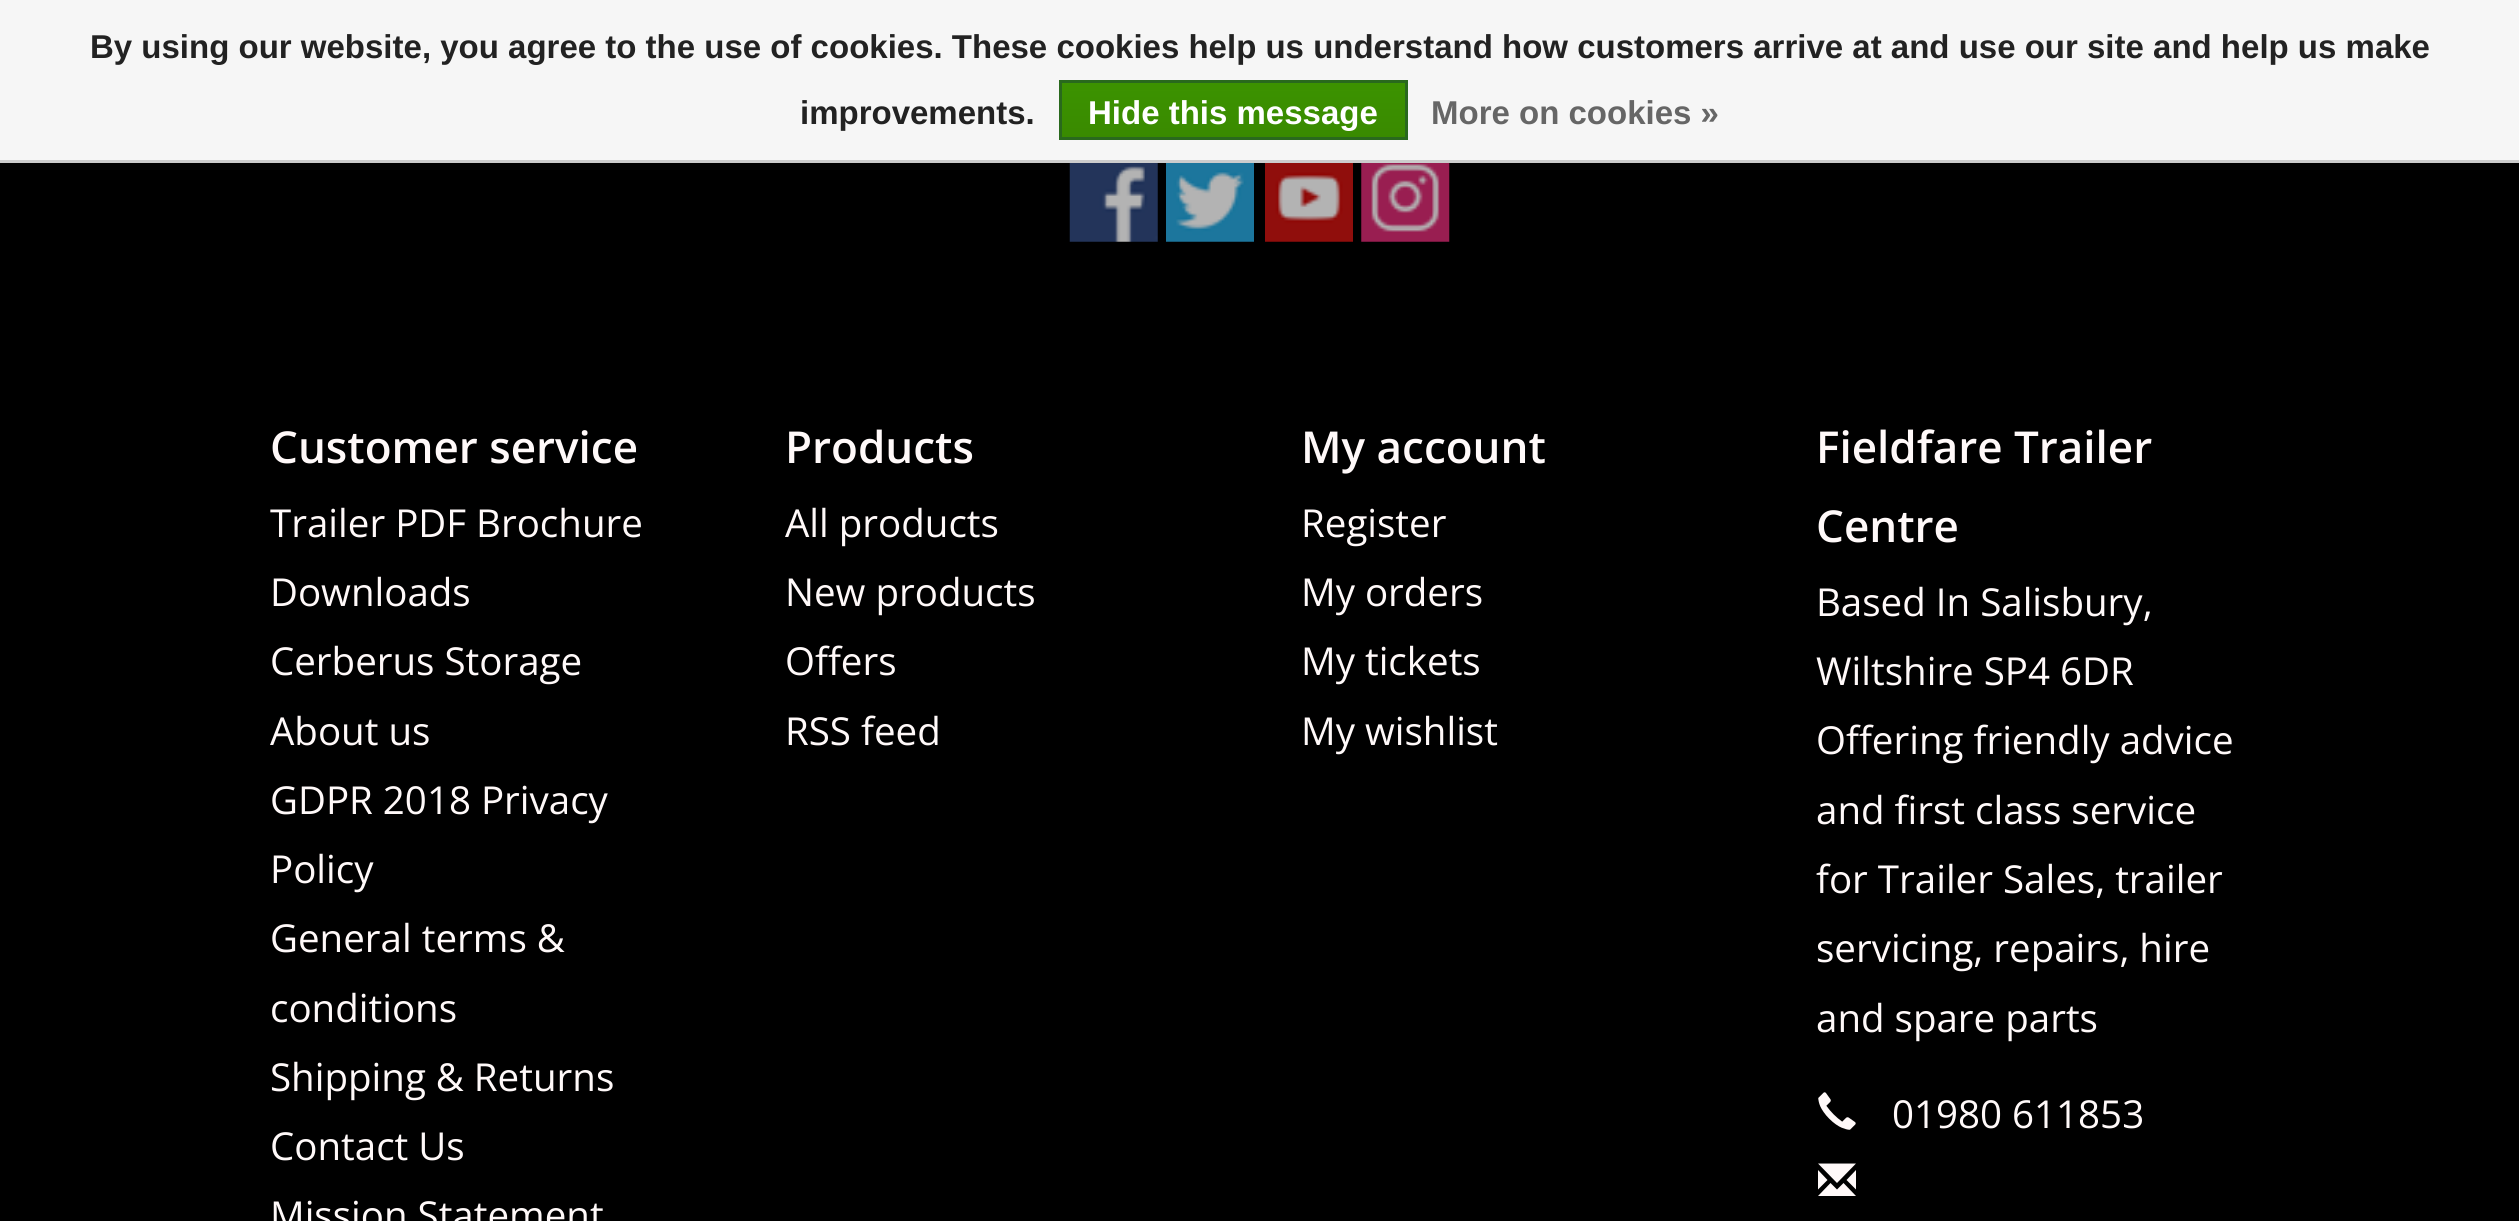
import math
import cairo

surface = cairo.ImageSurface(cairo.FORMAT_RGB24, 2519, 1221)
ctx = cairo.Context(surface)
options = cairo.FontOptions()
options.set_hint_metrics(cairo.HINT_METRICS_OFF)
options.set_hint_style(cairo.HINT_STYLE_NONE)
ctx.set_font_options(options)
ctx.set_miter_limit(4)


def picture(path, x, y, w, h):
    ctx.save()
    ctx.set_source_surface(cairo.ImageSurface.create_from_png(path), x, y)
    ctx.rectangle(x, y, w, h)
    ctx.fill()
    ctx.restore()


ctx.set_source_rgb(0, 0, 0)
ctx.paint()
ctx.set_source_rgb(0.961, 0.961, 0.961)
ctx.rectangle(0, 0, 2519, 160)
ctx.fill()
ctx.set_source_rgb(0.8, 0.8, 0.8)
ctx.rectangle(0, 160, 2519, 3)
ctx.fill()
ctx.select_font_face("Liberation Sans", cairo.FONT_SLANT_NORMAL, cairo.FONT_WEIGHT_BOLD)
ctx.set_font_size(33)
ctx.set_source_rgb(0.133, 0.133, 0.133)
ctx.move_to(90, 58)
ctx.show_text("By using our website, you agree to the use of cookies. These cookies help us understand how customers arrive at and use our site and help us make")
ctx.move_to(800, 124)
ctx.show_text("improvements.")
gradient = cairo.LinearGradient(1233, 82, 1233, 138)
gradient.add_color_stop_rgba(0, 0.235, 0.576, 0, 1)
gradient.add_color_stop_rgba(1, 0.224, 0.541, 0, 1)
ctx.set_source(gradient)
ctx.rectangle(1062, 83, 343, 54)
ctx.fill()
ctx.rectangle(1060.5, 81.5, 346, 57)
ctx.set_source_rgb(0.161, 0.412, 0.114)
ctx.set_line_width(3)
ctx.stroke()
ctx.set_source_rgb(1, 1, 1)
ctx.move_to(1088, 124)
ctx.show_text("Hide this message")
ctx.set_source_rgb(0.4, 0.4, 0.4)
ctx.move_to(1431, 124)
ctx.show_text("More on cookies »")
picture("img1.png", 1069, 163, 89, 79)
picture("img2.png", 1166, 163, 88, 79)
picture("img3.png", 1265, 163, 88, 79)
picture("img4.png", 1361, 163, 89, 79)
ctx.select_font_face("Open Sans SemiBold")
ctx.set_font_size(44)
ctx.set_source_rgb(1, 0.976, 0.976)
ctx.move_to(270, 463)
ctx.show_text("Customer service")
ctx.select_font_face("Open Sans")
ctx.set_font_size(38.5)
ctx.move_to(270, 537)
ctx.show_text("Trailer PDF Brochure")
ctx.move_to(270, 606)
ctx.show_text("Downloads")
ctx.move_to(270, 675)
ctx.show_text("Cerberus Storage")
ctx.move_to(270, 745)
ctx.show_text("About us")
ctx.move_to(270, 814)
ctx.show_text("GDPR 2018 Privacy")
ctx.move_to(270, 883)
ctx.show_text("Policy")
ctx.move_to(270, 952)
ctx.show_text("General terms &")
ctx.move_to(270, 1022)
ctx.show_text("conditions")
ctx.move_to(270, 1091)
ctx.show_text("Shipping & Returns")
ctx.move_to(270, 1160)
ctx.show_text("Contact Us")
ctx.move_to(270, 1229)
ctx.show_text("Mission Statement")
ctx.select_font_face("Open Sans SemiBold")
ctx.set_font_size(44)
ctx.move_to(785, 463)
ctx.show_text("Products")
ctx.select_font_face("Open Sans")
ctx.set_font_size(38.5)
ctx.move_to(785, 537)
ctx.show_text("All products")
ctx.move_to(785, 606)
ctx.show_text("New products")
ctx.move_to(785, 675)
ctx.show_text("Offers")
ctx.move_to(785, 745)
ctx.show_text("RSS feed")
ctx.select_font_face("Open Sans SemiBold")
ctx.set_font_size(44)
ctx.move_to(1301, 463)
ctx.show_text("My account")
ctx.select_font_face("Open Sans")
ctx.set_font_size(38.5)
ctx.move_to(1301, 537)
ctx.show_text("Register")
ctx.move_to(1301, 606)
ctx.show_text("My orders")
ctx.move_to(1301, 675)
ctx.show_text("My tickets")
ctx.move_to(1301, 745)
ctx.show_text("My wishlist")
ctx.select_font_face("Open Sans SemiBold")
ctx.set_font_size(44)
ctx.move_to(1816, 463)
ctx.show_text("Fieldfare Trailer")
ctx.move_to(1816, 542)
ctx.show_text("Centre")
ctx.select_font_face("Open Sans")
ctx.set_font_size(38.5)
ctx.move_to(1816, 616)
ctx.show_text("Based In Salisbury,")
ctx.move_to(1816, 685)
ctx.show_text("Wiltshire SP4 6DR")
ctx.move_to(1816, 754)
ctx.show_text("Offering friendly advice")
ctx.move_to(1816, 824)
ctx.show_text("and first class service")
ctx.move_to(1816, 893)
ctx.show_text("for Trailer Sales, trailer")
ctx.move_to(1816, 962)
ctx.show_text("servicing, repairs, hire")
ctx.move_to(1816, 1032)
ctx.show_text("and spare parts")
picture("img5.png", 1818, 1092, 38, 38)
ctx.move_to(1892, 1128)
ctx.show_text("01980 611853")
ctx.new_path()
ctx.move_to(1818, 1196)
ctx.line_to(1830.5, 1183)
ctx.line_to(1837, 1189.5)
ctx.line_to(1843.5, 1183)
ctx.line_to(1856, 1196)
ctx.close_path()
ctx.move_to(1818, 1189.5)
ctx.line_to(1818, 1170)
ctx.line_to(1827.5, 1180)
ctx.close_path()
ctx.move_to(1818, 1163.5)
ctx.line_to(1837, 1183)
ctx.line_to(1856, 1163.5)
ctx.close_path()
ctx.move_to(1846.5, 1180)
ctx.line_to(1856, 1170)
ctx.line_to(1856, 1189.5)
ctx.close_path()
ctx.fill()
surface.write_to_png("page.png")
